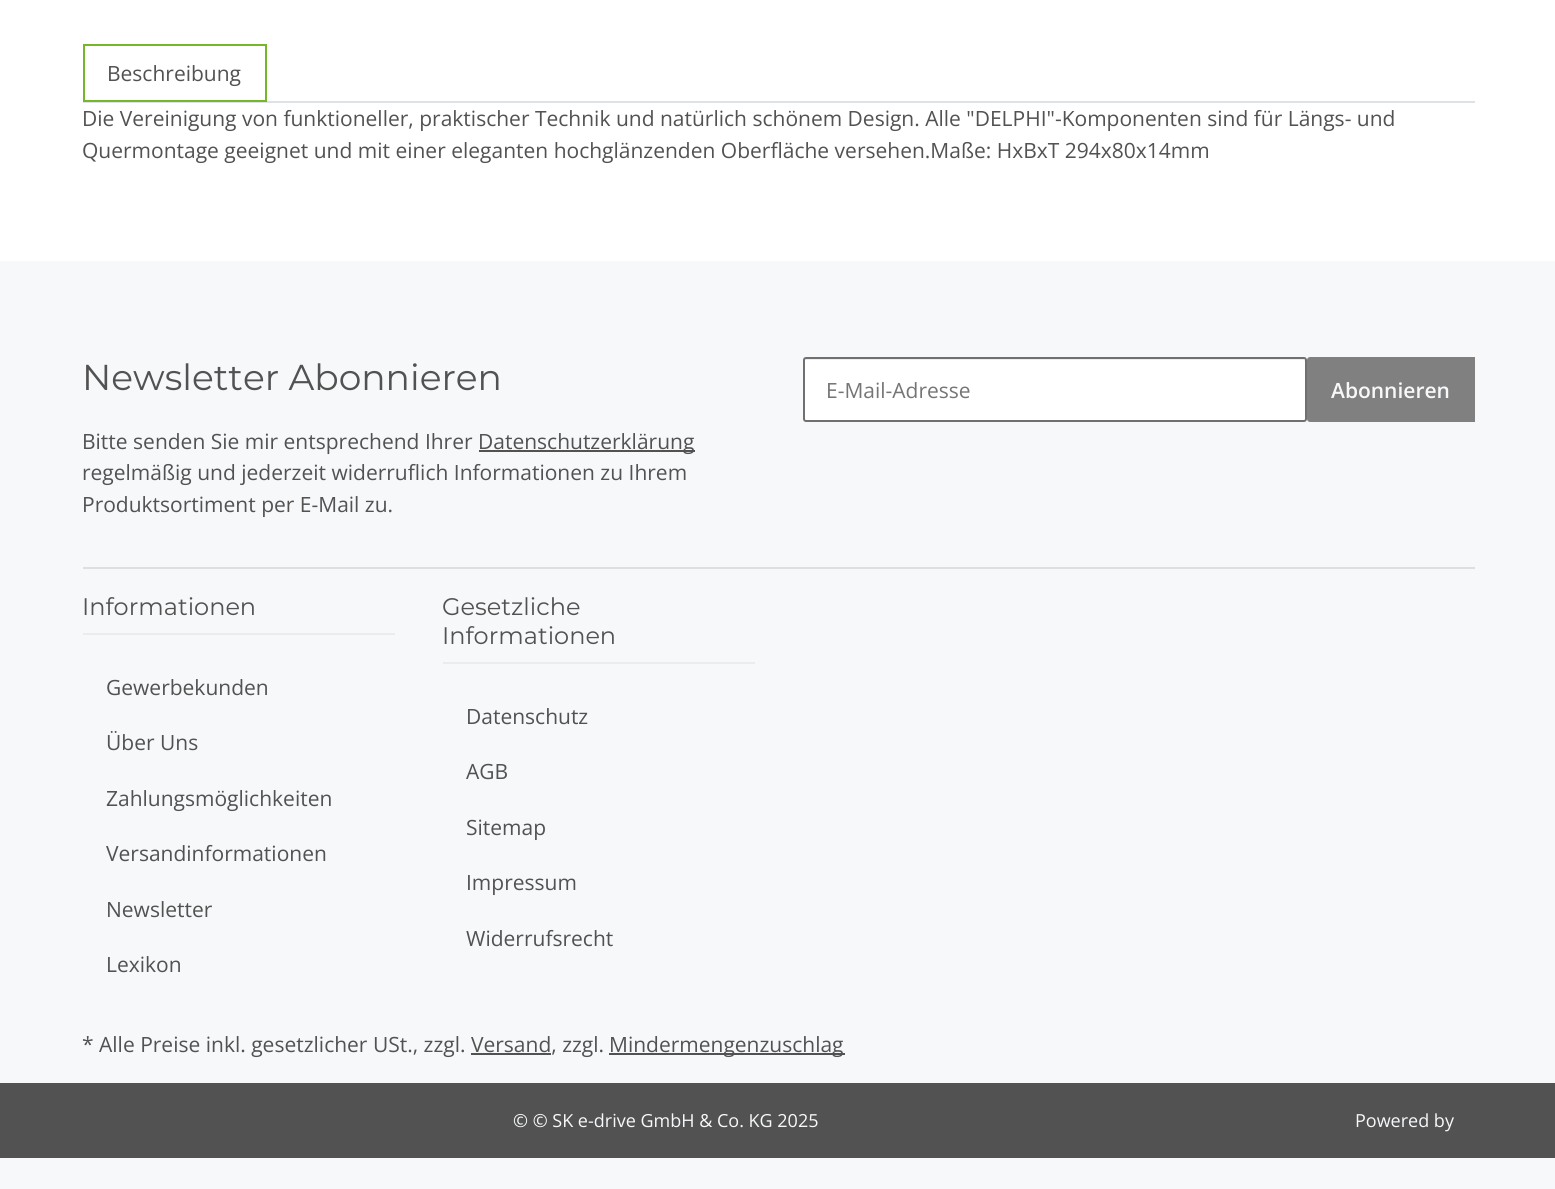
import math
import cairo

surface = cairo.ImageSurface(cairo.FORMAT_RGB24, 1555, 1189)
ctx = cairo.Context(surface)
options = cairo.FontOptions()
options.set_hint_metrics(cairo.HINT_METRICS_OFF)
options.set_hint_style(cairo.HINT_STYLE_NONE)
ctx.set_font_options(options)
ctx.set_miter_limit(4)


def round_rect(x, y, w, h, r):
    ctx.new_sub_path()
    for i, (u, v) in enumerate([(x + w - r, y + h - r), (x + r, y + h - r), (x + r, y + r), (x + w - r, y + r)]):
        ctx.arc(u, v, r, i * math.pi / 2, (i + 1) * math.pi / 2)
    ctx.close_path()


ctx.set_source_rgb(0.961, 0.969, 0.98)
ctx.paint()
ctx.set_source_rgb(1, 1, 1)
ctx.rectangle(0, 0, 1555, 261)
ctx.fill()
ctx.set_source_rgb(0.871, 0.886, 0.902)
ctx.rectangle(83, 101, 1392, 2)
ctx.fill()
ctx.rectangle(84, 45, 182, 56)
ctx.set_source_rgb(0.463, 0.718, 0.165)
ctx.stroke()
ctx.select_font_face("Open Sans")
ctx.set_font_size(21)
ctx.set_source_rgb(0.322, 0.322, 0.322)
ctx.move_to(107, 81)
ctx.show_text("Beschreibung")
ctx.move_to(82, 126)
ctx.show_text("Die Vereinigung von funktioneller, praktischer Technik und natürlich schönem Design. Alle \"DELPHI\"-Komponenten sind für Längs- und")
ctx.move_to(82, 158)
ctx.show_text("Quermontage geeignet und mit einer eleganten hochglänzenden Oberfläche versehen.Maße: HxBxT 294x80x14mm")
ctx.select_font_face("Montserrat")
ctx.set_font_size(36)
ctx.move_to(82, 390)
ctx.show_text("Newsletter Abonnieren")
ctx.select_font_face("Open Sans")
ctx.set_font_size(21)
ctx.move_to(82, 449)
ctx.show_text("Bitte senden Sie mir entsprechend Ihrer")
ctx.rectangle(479, 450, 216, 2)
ctx.fill()
ctx.move_to(478, 449)
ctx.show_text("Datenschutzerklärung")
ctx.move_to(82, 480)
ctx.show_text("regelmäßig und jederzeit widerruflich Informationen zu Ihrem")
ctx.move_to(82, 512)
ctx.show_text("Produktsortiment per E-Mail zu.")
ctx.set_source_rgb(1, 1, 1)
round_rect(804, 359, 501, 61, 1.5)
ctx.fill()
ctx.set_source_rgba(0, 0, 0, 0.07)
ctx.new_path()
ctx.move_to(806, 360)
ctx.line_to(1304, 360)
ctx.line_to(1305, 362)
ctx.line_to(1305, 360)
ctx.line_to(1304, 359)
ctx.line_to(805, 359)
ctx.curve_to(804, 360, 804, 361, 804, 362)
ctx.curve_to(804, 361, 805, 360, 806, 360)
ctx.close_path()
ctx.fill()
round_rect(804, 358, 502, 63, 2)
ctx.set_source_rgb(0.439, 0.439, 0.439)
ctx.stroke()
ctx.set_source_rgb(0.459, 0.459, 0.459)
ctx.move_to(826, 398)
ctx.show_text("E-Mail-Adresse")
ctx.set_source_rgb(0.502, 0.502, 0.502)
ctx.new_path()
ctx.move_to(1310, 358)
ctx.line_to(1474, 358)
ctx.line_to(1474, 421)
ctx.line_to(1310, 421)
ctx.curve_to(1309, 421, 1308, 420, 1308, 419)
ctx.line_to(1308, 360)
ctx.curve_to(1308, 359, 1309, 358, 1310, 358)
ctx.close_path()
ctx.fill_preserve()
ctx.stroke()
ctx.select_font_face("Open Sans SemiBold")
ctx.set_source_rgb(0.961, 0.969, 0.98)
ctx.move_to(1331, 398)
ctx.show_text("Abonnieren")
ctx.set_source_rgb(0.867, 0.871, 0.882)
ctx.rectangle(83, 567, 1392, 2)
ctx.fill()
ctx.set_source_rgb(0.922, 0.922, 0.922)
ctx.rectangle(83, 633, 312, 2)
ctx.fill()
ctx.select_font_face("Montserrat")
ctx.set_font_size(24)
ctx.set_source_rgb(0.322, 0.322, 0.322)
ctx.move_to(82, 615)
ctx.show_text("Informationen")
ctx.select_font_face("Open Sans")
ctx.set_font_size(21)
ctx.move_to(106, 695)
ctx.show_text("Gewerbekunden")
ctx.move_to(106, 750)
ctx.show_text("Über Uns")
ctx.move_to(106, 806)
ctx.show_text("Zahlungsmöglichkeiten")
ctx.move_to(106, 861)
ctx.show_text("Versandinformationen")
ctx.move_to(106, 917)
ctx.show_text("Newsletter")
ctx.move_to(106, 972)
ctx.show_text("Lexikon")
ctx.set_source_rgb(0.922, 0.922, 0.922)
ctx.rectangle(443, 662, 312, 2)
ctx.fill()
ctx.select_font_face("Montserrat")
ctx.set_font_size(24)
ctx.set_source_rgb(0.322, 0.322, 0.322)
ctx.move_to(442, 615)
ctx.show_text("Gesetzliche")
ctx.move_to(442, 644)
ctx.show_text("Informationen")
ctx.select_font_face("Open Sans")
ctx.set_font_size(21)
ctx.move_to(466, 724)
ctx.show_text("Datenschutz")
ctx.move_to(466, 779)
ctx.show_text("AGB")
ctx.move_to(466, 835)
ctx.show_text("Sitemap")
ctx.move_to(466, 890)
ctx.show_text("Impressum")
ctx.move_to(466, 946)
ctx.show_text("Widerrufsrecht")
ctx.move_to(82, 1052)
ctx.show_text("* Alle Preise inkl. gesetzlicher USt., zzgl. Versand, zzgl.")
ctx.rectangle(471, 1053, 80, 2)
ctx.fill()
ctx.rectangle(609, 1053, 236, 2)
ctx.fill()
ctx.move_to(609, 1052)
ctx.show_text("Mindermengenzuschlag")
ctx.rectangle(0, 1083, 1555, 75)
ctx.fill()
ctx.set_font_size(18)
ctx.set_source_rgb(0.961, 0.969, 0.98)
ctx.move_to(513, 1127)
ctx.show_text("© © SK e-drive GmbH & Co. KG 2025")
ctx.move_to(1355, 1127)
ctx.show_text("Powered by")
surface.write_to_png("page.png")
